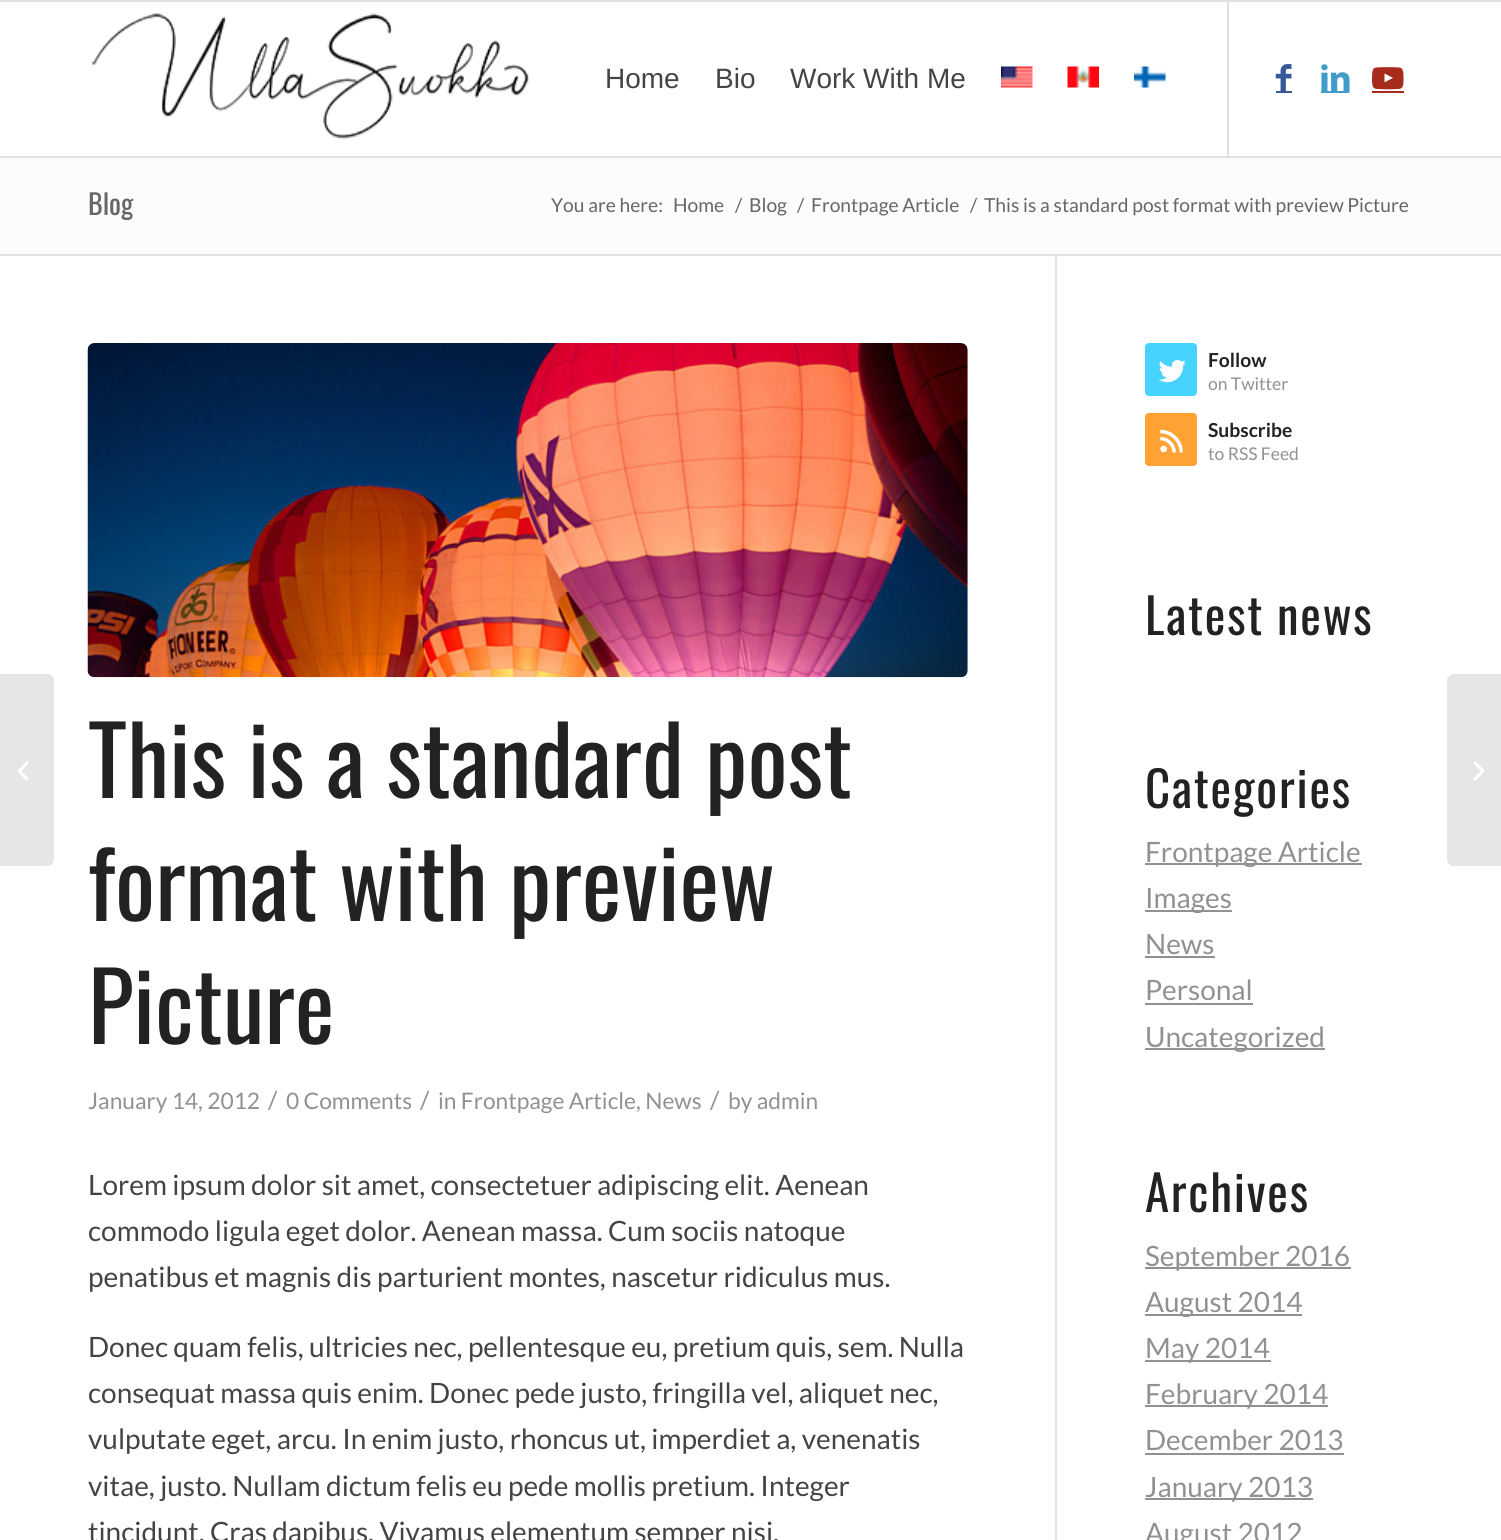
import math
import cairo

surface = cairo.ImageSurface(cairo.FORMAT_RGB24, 1501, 1540)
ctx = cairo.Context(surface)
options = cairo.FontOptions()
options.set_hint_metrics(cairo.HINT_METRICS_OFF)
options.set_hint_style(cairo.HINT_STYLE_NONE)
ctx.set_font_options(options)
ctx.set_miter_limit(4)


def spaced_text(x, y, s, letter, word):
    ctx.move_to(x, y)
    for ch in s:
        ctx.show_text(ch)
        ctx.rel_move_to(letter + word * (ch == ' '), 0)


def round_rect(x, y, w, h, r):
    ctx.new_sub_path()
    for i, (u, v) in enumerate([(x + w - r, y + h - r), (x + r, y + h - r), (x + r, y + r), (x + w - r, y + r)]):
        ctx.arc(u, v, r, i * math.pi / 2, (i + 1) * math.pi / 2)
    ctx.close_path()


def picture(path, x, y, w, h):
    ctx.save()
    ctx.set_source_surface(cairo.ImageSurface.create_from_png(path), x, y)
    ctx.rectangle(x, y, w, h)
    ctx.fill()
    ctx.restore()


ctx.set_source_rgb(1, 1, 1)
ctx.paint()
ctx.set_source_rgb(0.882, 0.882, 0.882)
ctx.rectangle(0, 0, 1501, 2)
ctx.fill()
ctx.rectangle(0, 156, 1501, 2)
ctx.fill()
picture("img1.png", 91, 13, 438, 127)
ctx.rectangle(1227, 2, 2, 154)
ctx.fill()
ctx.select_font_face("Liberation Sans")
ctx.set_font_size(28)
ctx.set_source_rgb(0.267, 0.267, 0.267)
ctx.move_to(605, 88)
ctx.show_text("Home")
ctx.move_to(715, 88)
ctx.show_text("Bio")
ctx.move_to(790, 88)
ctx.show_text("Work With Me")
picture("img2.png", 1001, 66, 32, 22)
picture("img3.png", 1067, 66, 32, 22)
picture("img4.png", 1134, 66, 32, 22)
picture("img5.png", 1275, 64, 17, 27)
ctx.set_source_rgb(0.216, 0.345, 0.608)
ctx.rectangle(1276, 91, 16, 2)
ctx.fill()
ctx.set_source_rgb(0.255, 0.612, 0.792)
ctx.rectangle(1321, 91, 28, 2)
ctx.fill()
picture("img6.png", 1321, 64, 29, 29)
picture("img7.png", 1372, 67, 32, 23)
ctx.set_source_rgb(0.655, 0.169, 0.114)
ctx.rectangle(1372, 91, 32, 2)
ctx.fill()
ctx.set_source_rgb(0.902, 0.902, 0.902)
ctx.new_path()
ctx.move_to(0, 674)
ctx.line_to(47, 674)
ctx.curve_to(51, 674, 54, 677, 54, 681)
ctx.line_to(54, 859)
ctx.curve_to(54, 863, 51, 866, 47, 866)
ctx.line_to(0, 866)
ctx.close_path()
ctx.fill()
picture("img8.png", 17, 761, 12, 20)
ctx.set_source_rgb(0.988, 0.988, 0.988)
ctx.rectangle(0, 158, 1501, 96)
ctx.fill()
ctx.select_font_face("Oswald")
ctx.set_source_rgb(0.4, 0.4, 0.4)
ctx.move_to(88, 215)
ctx.show_text("Blog")
ctx.select_font_face("Lato")
ctx.set_font_size(19.25)
ctx.move_to(551, 212)
ctx.show_text("You are here:")
ctx.move_to(673, 212)
ctx.show_text("Home")
ctx.move_to(735, 212)
ctx.show_text("/")
ctx.move_to(749, 212)
ctx.show_text("Blog")
ctx.move_to(797, 212)
ctx.show_text("/")
ctx.move_to(811, 212)
ctx.show_text("Frontpage Article")
ctx.move_to(970, 212)
ctx.show_text("/")
ctx.move_to(984, 212)
ctx.show_text("This is a standard post format with preview Picture")
ctx.set_source_rgb(0.882, 0.882, 0.882)
ctx.rectangle(0, 254, 1501, 2)
ctx.fill()
ctx.rectangle(1055, 256, 2, 1284)
ctx.fill()
picture("img9.png", 87, 343, 881, 335)
ctx.select_font_face("Oswald")
ctx.set_font_size(94.5)
ctx.set_source_rgb(0.133, 0.133, 0.133)
ctx.move_to(88, 798)
ctx.show_text("This is a standard post")
ctx.move_to(88, 921)
ctx.show_text("format with preview")
ctx.move_to(88, 1044)
ctx.show_text("Picture")
ctx.select_font_face("Lato")
ctx.set_font_size(22.75)
ctx.set_source_rgb(0.569, 0.569, 0.569)
ctx.move_to(88, 1109)
ctx.show_text("January 14, 2012")
ctx.set_font_size(25)
ctx.move_to(268, 1109)
ctx.show_text("/")
ctx.set_font_size(22.75)
ctx.move_to(286, 1109)
ctx.show_text("0 Comments")
ctx.set_font_size(25)
ctx.move_to(420, 1109)
ctx.show_text("/")
ctx.set_font_size(22.75)
ctx.move_to(438, 1109)
ctx.show_text("in Frontpage Article, News")
ctx.set_font_size(25)
ctx.move_to(710, 1109)
ctx.show_text("/")
ctx.set_font_size(22.75)
ctx.move_to(728, 1109)
ctx.show_text("by admin")
ctx.set_font_size(28)
ctx.set_source_rgb(0.267, 0.267, 0.267)
ctx.move_to(88, 1195)
ctx.show_text("Lorem ipsum dolor sit amet, consectetuer adipiscing elit. Aenean")
ctx.move_to(88, 1241)
ctx.show_text("commodo ligula eget dolor. Aenean massa. Cum sociis natoque")
ctx.move_to(88, 1287)
ctx.show_text("penatibus et magnis dis parturient montes, nascetur ridiculus mus.")
ctx.move_to(88, 1357)
ctx.show_text("Donec quam felis, ultricies nec, pellentesque eu, pretium quis, sem. Nulla")
ctx.move_to(88, 1403)
ctx.show_text("consequat massa quis enim. Donec pede justo, fringilla vel, aliquet nec,")
ctx.move_to(88, 1449)
ctx.show_text("vulputate eget, arcu. In enim justo, rhoncus ut, imperdiet a, venenatis")
ctx.move_to(88, 1496)
ctx.show_text("vitae, justo. Nullam dictum felis eu pede mollis pretium. Integer")
ctx.move_to(88, 1542)
ctx.show_text("tincidunt. Cras dapibus. Vivamus elementum semper nisi.")
ctx.set_source_rgb(0.275, 0.831, 0.996)
round_rect(1145, 343, 52, 53, 4)
ctx.fill()
picture("img10.png", 1158, 360, 28, 23)
ctx.select_font_face("Lato", cairo.FONT_SLANT_NORMAL, cairo.FONT_WEIGHT_BOLD)
ctx.set_font_size(19.25)
ctx.set_source_rgb(0.133, 0.133, 0.133)
ctx.move_to(1208, 367)
ctx.show_text("Follow")
ctx.select_font_face("Lato")
ctx.set_font_size(17.5)
ctx.set_source_rgb(0.569, 0.569, 0.569)
ctx.move_to(1208, 390)
ctx.show_text("on Twitter")
ctx.set_source_rgb(1, 0.631, 0.2)
round_rect(1145, 413, 52, 53, 4)
ctx.fill()
picture("img11.png", 1160, 429, 23, 24)
ctx.select_font_face("Lato", cairo.FONT_SLANT_NORMAL, cairo.FONT_WEIGHT_BOLD)
ctx.set_font_size(19.25)
ctx.set_source_rgb(0.133, 0.133, 0.133)
ctx.move_to(1208, 437)
ctx.show_text("Subscribe")
ctx.select_font_face("Lato")
ctx.set_font_size(17.5)
ctx.set_source_rgb(0.569, 0.569, 0.569)
ctx.move_to(1208, 460)
ctx.show_text("to RSS Feed")
ctx.select_font_face("Oswald")
ctx.set_font_size(49)
ctx.set_source_rgb(0.133, 0.133, 0.133)
spaced_text(1145, 635, "Latest news", 1.75, 0)
spaced_text(1145, 808, "Categories", 1.75, 0)
ctx.set_source_rgb(0.569, 0.569, 0.569)
ctx.rectangle(1145, 863, 217, 2)
ctx.fill()
ctx.select_font_face("Lato")
ctx.set_font_size(28)
ctx.move_to(1145, 862)
ctx.show_text("Frontpage Article")
ctx.rectangle(1145, 910, 87, 2)
ctx.fill()
ctx.move_to(1145, 908)
ctx.show_text("Images")
ctx.move_to(1145, 954)
ctx.show_text("News")
ctx.rectangle(1145, 956, 70, 2)
ctx.fill()
ctx.move_to(1145, 1000)
ctx.show_text("Personal")
ctx.rectangle(1145, 1003, 108, 2)
ctx.fill()
ctx.rectangle(1145, 1048, 180, 2)
ctx.fill()
ctx.move_to(1145, 1047)
ctx.show_text("Uncategorized")
ctx.select_font_face("Oswald")
ctx.set_font_size(49)
ctx.set_source_rgb(0.133, 0.133, 0.133)
spaced_text(1145, 1212, "Archives", 1.75, 0)
ctx.set_source_rgb(0.569, 0.569, 0.569)
ctx.rectangle(1145, 1267, 206, 2)
ctx.fill()
ctx.select_font_face("Lato")
ctx.set_font_size(28)
ctx.move_to(1145, 1266)
ctx.show_text("September 2016")
ctx.rectangle(1145, 1314, 157, 2)
ctx.fill()
ctx.move_to(1145, 1312)
ctx.show_text("August 2014")
ctx.rectangle(1145, 1360, 126, 2)
ctx.fill()
ctx.move_to(1145, 1358)
ctx.show_text("May 2014")
ctx.rectangle(1145, 1405, 183, 2)
ctx.fill()
ctx.move_to(1145, 1404)
ctx.show_text("February 2014")
ctx.move_to(1145, 1450)
ctx.show_text("December 2013")
ctx.rectangle(1145, 1453, 199, 2)
ctx.fill()
ctx.rectangle(1145, 1498, 168, 2)
ctx.fill()
ctx.move_to(1145, 1497)
ctx.show_text("January 2013")
ctx.move_to(1145, 1543)
ctx.show_text("August 2012")
ctx.set_source_rgb(0.902, 0.902, 0.902)
ctx.new_path()
ctx.move_to(1454, 674)
ctx.line_to(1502, 674)
ctx.line_to(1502, 866)
ctx.line_to(1454, 866)
ctx.curve_to(1450, 866, 1447, 863, 1447, 859)
ctx.line_to(1447, 681)
ctx.curve_to(1447, 677, 1450, 674, 1454, 674)
ctx.close_path()
ctx.fill()
picture("img12.png", 1473, 761, 12, 20)
surface.write_to_png("page.png")
